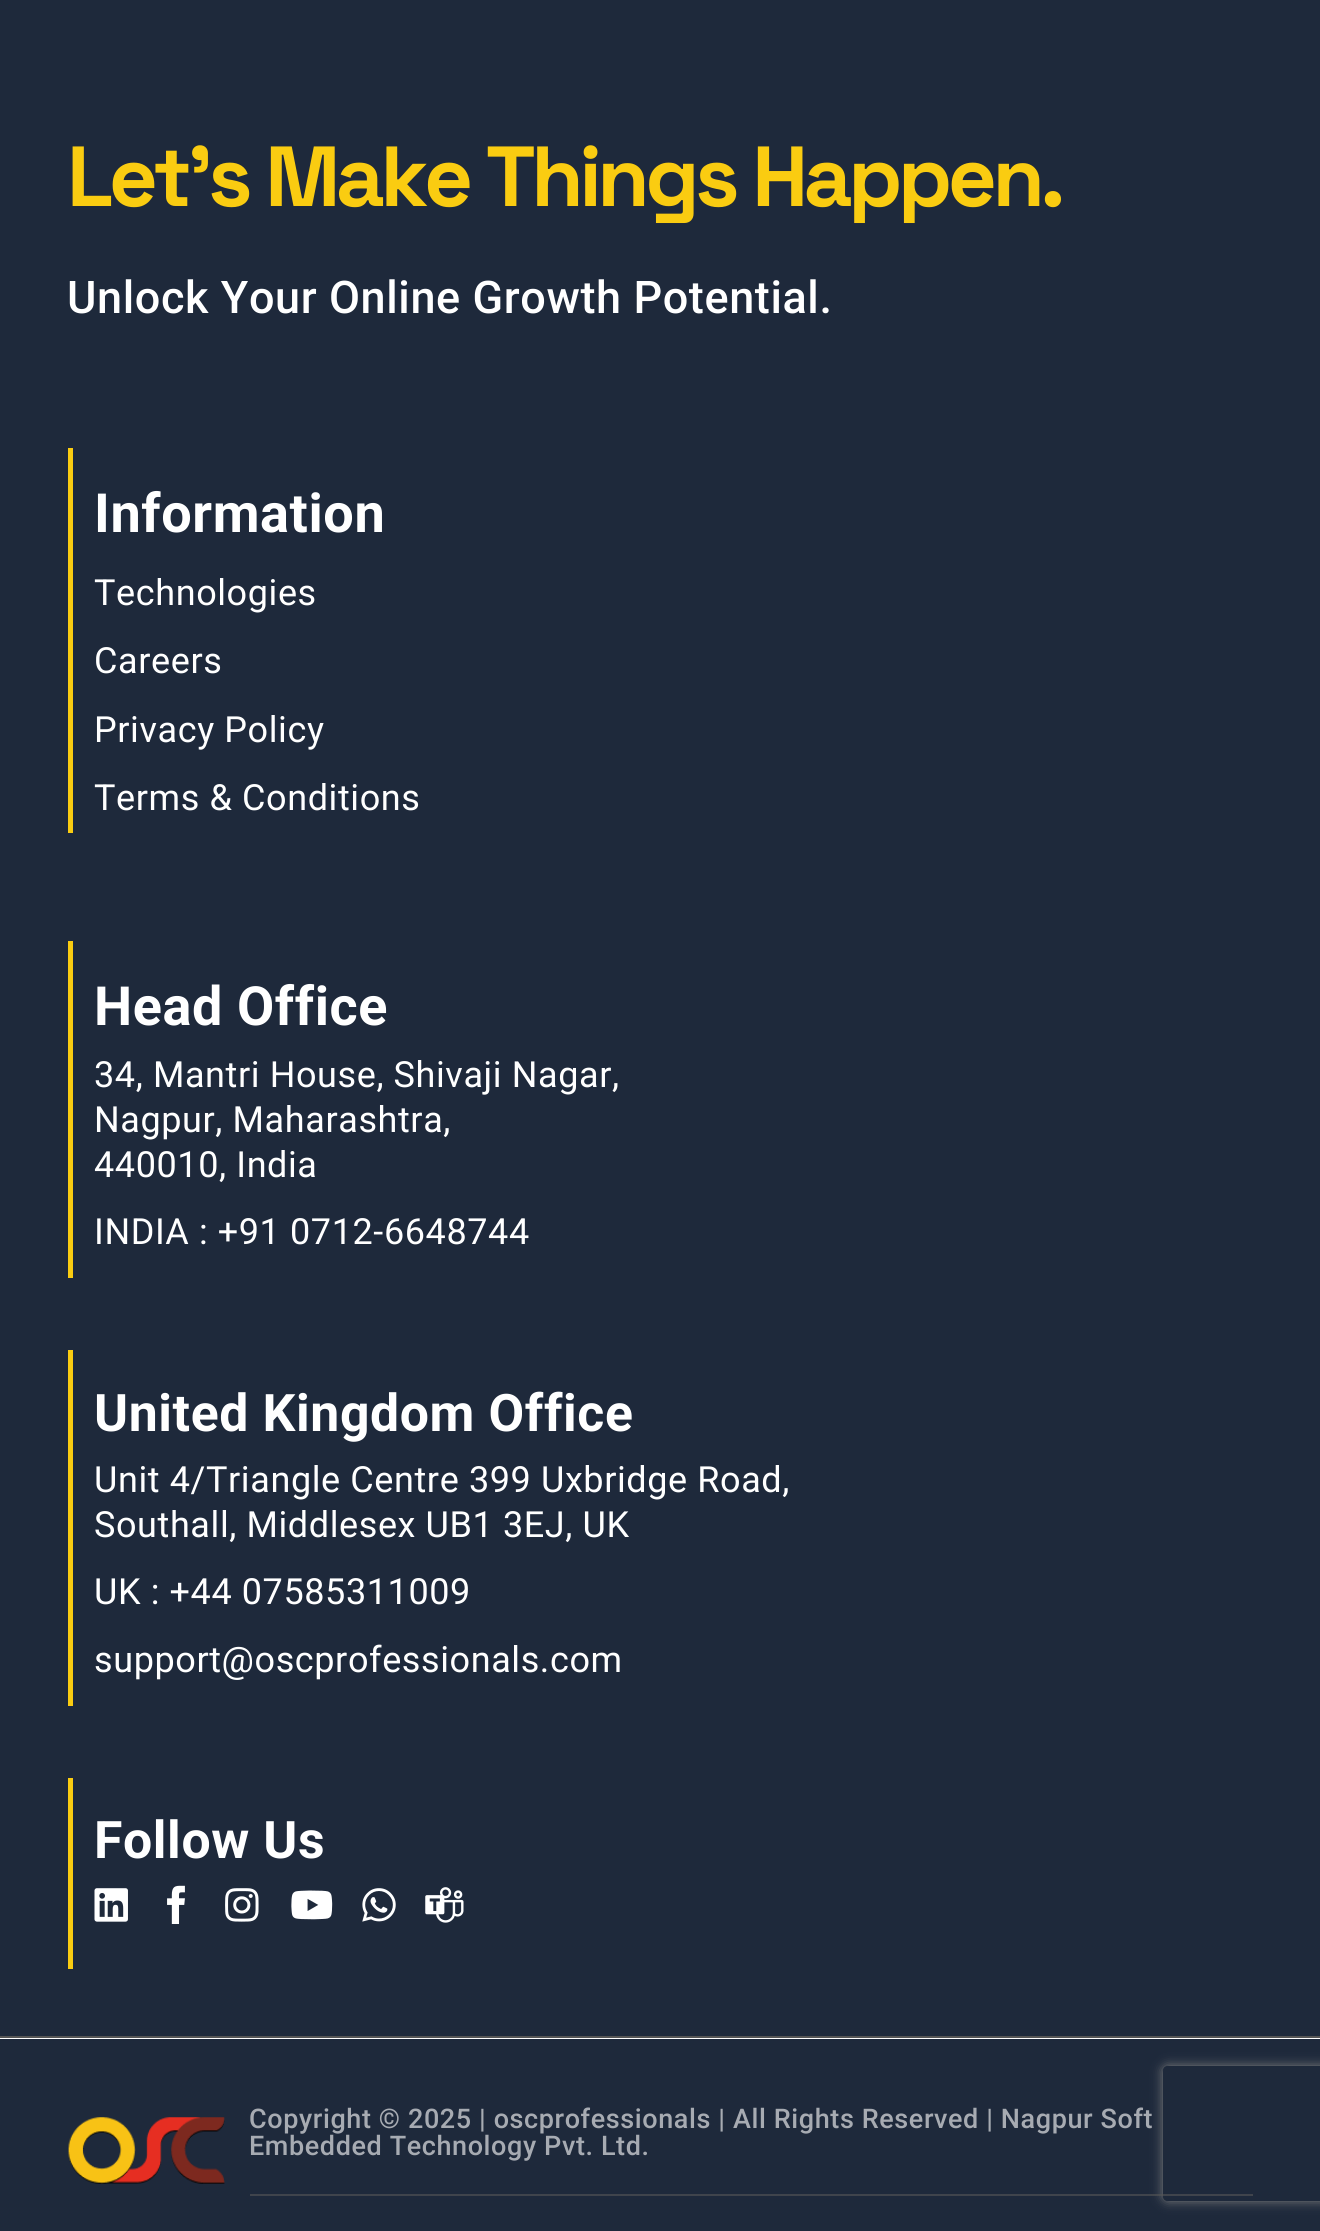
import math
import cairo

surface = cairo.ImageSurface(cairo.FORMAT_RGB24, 1320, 2231)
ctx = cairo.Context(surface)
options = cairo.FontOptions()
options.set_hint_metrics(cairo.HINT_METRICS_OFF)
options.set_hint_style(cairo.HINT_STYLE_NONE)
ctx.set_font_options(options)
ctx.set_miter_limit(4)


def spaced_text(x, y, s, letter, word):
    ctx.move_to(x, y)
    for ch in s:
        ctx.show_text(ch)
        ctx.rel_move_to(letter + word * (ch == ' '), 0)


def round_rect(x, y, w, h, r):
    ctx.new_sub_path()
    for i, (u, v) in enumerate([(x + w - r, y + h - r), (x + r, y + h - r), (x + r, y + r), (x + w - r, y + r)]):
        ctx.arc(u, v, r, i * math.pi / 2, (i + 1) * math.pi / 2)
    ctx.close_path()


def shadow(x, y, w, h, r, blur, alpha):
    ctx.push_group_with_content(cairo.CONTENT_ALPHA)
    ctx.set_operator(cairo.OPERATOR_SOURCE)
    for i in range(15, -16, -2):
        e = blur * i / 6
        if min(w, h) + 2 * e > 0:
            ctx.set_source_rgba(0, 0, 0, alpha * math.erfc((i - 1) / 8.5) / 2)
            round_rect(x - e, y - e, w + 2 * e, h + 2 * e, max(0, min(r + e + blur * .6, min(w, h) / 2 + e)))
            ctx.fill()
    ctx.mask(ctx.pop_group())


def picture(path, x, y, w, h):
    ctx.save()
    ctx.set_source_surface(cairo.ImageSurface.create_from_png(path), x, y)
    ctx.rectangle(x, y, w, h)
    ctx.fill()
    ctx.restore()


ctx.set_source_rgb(1, 1, 1)
ctx.paint()
ctx.set_source_rgb(0.118, 0.161, 0.231)
ctx.rectangle(0, 0, 1320, 2036)
ctx.fill()
ctx.select_font_face("Space Grotesk Light")
ctx.set_font_size(85.1)
ctx.set_source_rgb(0.98, 0.8, 0.067)
spaced_text(67, 206, "Let’s Make Things Happen.", -4.5, 0)
ctx.select_font_face("Roboto Medium")
ctx.set_font_size(45)
ctx.set_source_rgb(1, 1, 1)
spaced_text(67, 313, "Unlock Your Online Growth Potential.", 0.6, 0)
ctx.set_source_rgb(0.98, 0.8, 0.067)
ctx.rectangle(68, 448, 5, 385)
ctx.fill()
ctx.select_font_face("Roboto", cairo.FONT_SLANT_NORMAL, cairo.FONT_WEIGHT_BOLD)
ctx.set_font_size(54)
ctx.set_source_rgb(1, 1, 1)
spaced_text(94, 532, "Information", 0.6, 0)
ctx.select_font_face("Roboto")
ctx.set_font_size(36)
spaced_text(94, 605, "Technologies", 0.6, 0)
spaced_text(94, 673, "Careers", 0.6, 0)
spaced_text(94, 742, "Privacy Policy", 0.6, 0)
spaced_text(94, 810, "Terms & Conditions", 0.6, 0)
ctx.set_source_rgb(0.98, 0.8, 0.067)
ctx.rectangle(68, 941, 5, 337)
ctx.fill()
ctx.select_font_face("Roboto", cairo.FONT_SLANT_NORMAL, cairo.FONT_WEIGHT_BOLD)
ctx.set_font_size(54)
ctx.set_source_rgb(1, 1, 1)
spaced_text(94, 1025, "Head Office", 0.6, 0)
ctx.select_font_face("Roboto")
ctx.set_font_size(36)
spaced_text(94, 1087, "34, Mantri House, Shivaji Nagar,", 0.6, 0)
spaced_text(94, 1132, "Nagpur, Maharashtra,", 0.6, 0)
spaced_text(94, 1177, "440010, India", 0.6, 0)
spaced_text(94, 1244, "INDIA : +91 0712-6648744", 0.6, 0)
ctx.set_source_rgb(0.98, 0.8, 0.067)
ctx.rectangle(68, 1350, 5, 356)
ctx.fill()
ctx.select_font_face("Roboto", cairo.FONT_SLANT_NORMAL, cairo.FONT_WEIGHT_BOLD)
ctx.set_font_size(51.75)
ctx.set_source_rgb(1, 1, 1)
spaced_text(94, 1431, "United Kingdom Office", 0.6, 0)
ctx.select_font_face("Roboto")
ctx.set_font_size(36)
spaced_text(94, 1492, "Unit 4/Triangle Centre 399 Uxbridge Road,", 0.6, 0)
spaced_text(94, 1537, "Southall, Middlesex UB1 3EJ, UK", 0.6, 0)
spaced_text(94, 1604, "UK : +44 07585311009", 0.6, 0)
spaced_text(94, 1672, "support@oscprofessionals.com", 0.6, 0)
ctx.set_source_rgb(0.98, 0.8, 0.067)
ctx.rectangle(68, 1778, 5, 191)
ctx.fill()
ctx.select_font_face("Roboto", cairo.FONT_SLANT_NORMAL, cairo.FONT_WEIGHT_BOLD)
ctx.set_font_size(51.75)
ctx.set_source_rgb(1, 1, 1)
spaced_text(94, 1858, "Follow Us", 0.6, 0)
picture("img1.png", 94, 1888, 34, 34)
picture("img2.png", 167, 1885, 18, 39)
picture("img3.png", 225, 1888, 34, 34)
picture("img4.png", 291, 1890, 42, 30)
picture("img5.png", 362, 1888, 34, 34)
picture("img6.png", 425, 1887, 39, 36)
ctx.set_source_rgb(0.118, 0.161, 0.231)
ctx.rectangle(0, 2039, 1320, 192)
ctx.fill()
ctx.set_source_rgb(0.333, 0.333, 0.333)
ctx.rectangle(0, 2036, 1320, 2)
ctx.fill()
picture("img7.png", 68, 2117, 157, 67)
ctx.save()
ctx.set_fill_rule(cairo.FILL_RULE_EVEN_ODD)
ctx.new_path()
ctx.move_to(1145, 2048)
ctx.line_to(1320, 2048)
ctx.line_to(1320, 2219)
ctx.line_to(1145, 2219)
ctx.close_path()
ctx.move_to(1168, 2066)
ctx.line_to(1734, 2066)
ctx.curve_to(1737, 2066, 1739, 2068, 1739, 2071)
ctx.line_to(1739, 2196)
ctx.curve_to(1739, 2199, 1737, 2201, 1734, 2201)
ctx.line_to(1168, 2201)
ctx.curve_to(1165, 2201, 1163, 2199, 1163, 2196)
ctx.line_to(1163, 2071)
ctx.curve_to(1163, 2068, 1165, 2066, 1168, 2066)
ctx.close_path()
ctx.clip()
ctx.set_source_rgb(0.502, 0.502, 0.502)
shadow(1163, 2066, 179, 135, 5, 5.5, 1)
ctx.restore()
ctx.set_source_rgba(0.341, 0.341, 0.341, 0.6)
ctx.rectangle(250, 2194, 1003, 2)
ctx.fill()
ctx.select_font_face("Roboto Medium")
ctx.set_font_size(27)
ctx.set_source_rgb(0.655, 0.671, 0.698)
spaced_text(249, 2128, "Copyright © 2025 | oscprofessionals | All Rights Reserved | Nagpur Soft", 0.6, 0)
spaced_text(249, 2155, "Embedded Technology Pvt. Ltd.", 0.6, 0)
surface.write_to_png("page.png")
